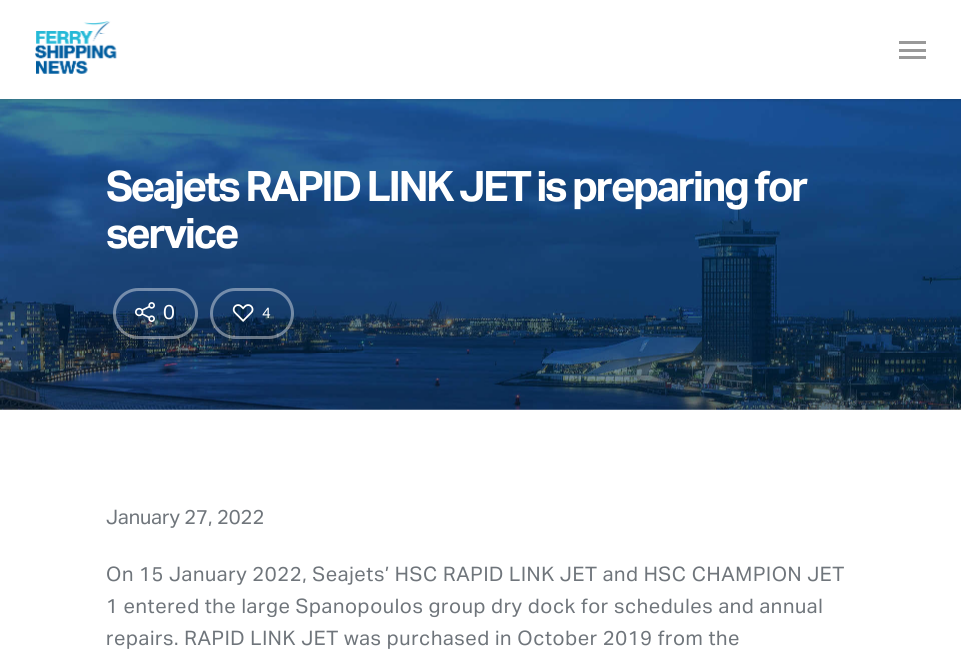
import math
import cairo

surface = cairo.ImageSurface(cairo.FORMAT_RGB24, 961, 658)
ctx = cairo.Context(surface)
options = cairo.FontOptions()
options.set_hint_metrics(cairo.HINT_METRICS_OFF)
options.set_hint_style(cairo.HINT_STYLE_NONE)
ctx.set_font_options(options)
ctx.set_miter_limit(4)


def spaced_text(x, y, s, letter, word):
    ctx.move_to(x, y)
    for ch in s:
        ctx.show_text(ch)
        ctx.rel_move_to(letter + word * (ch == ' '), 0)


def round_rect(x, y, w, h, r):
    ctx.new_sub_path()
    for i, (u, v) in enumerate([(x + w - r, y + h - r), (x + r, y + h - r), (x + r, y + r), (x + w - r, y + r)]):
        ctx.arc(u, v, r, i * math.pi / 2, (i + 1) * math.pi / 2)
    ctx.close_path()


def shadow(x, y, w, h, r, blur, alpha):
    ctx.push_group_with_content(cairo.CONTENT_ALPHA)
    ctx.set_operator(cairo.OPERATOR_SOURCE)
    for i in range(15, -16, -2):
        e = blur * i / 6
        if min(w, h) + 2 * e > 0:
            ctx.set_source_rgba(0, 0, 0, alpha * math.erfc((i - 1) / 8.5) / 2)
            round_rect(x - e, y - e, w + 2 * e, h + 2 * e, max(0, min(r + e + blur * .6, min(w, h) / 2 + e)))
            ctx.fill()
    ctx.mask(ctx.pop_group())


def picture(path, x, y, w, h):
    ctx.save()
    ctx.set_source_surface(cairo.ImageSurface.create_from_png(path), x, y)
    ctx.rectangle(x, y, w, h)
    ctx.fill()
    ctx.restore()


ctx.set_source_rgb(1, 1, 1)
ctx.paint()
picture("img2.png", 0, 99, 961, 311)
ctx.set_source_rgb(0, 0, 0)
shadow(0, 0, 961, 99, 0, 2, 0.22)
ctx.set_source_rgb(1, 1, 1)
ctx.rectangle(0, 0, 961, 99)
ctx.fill()
picture("img1.png", 35, 21, 82, 53)
ctx.set_source_rgb(0.6, 0.6, 0.6)
ctx.rectangle(899, 41, 27, 3)
ctx.fill()
ctx.rectangle(899, 56, 27, 3)
ctx.fill()
ctx.rectangle(899, 49, 27, 3)
ctx.fill()
ctx.select_font_face("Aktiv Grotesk", cairo.FONT_SLANT_NORMAL, cairo.FONT_WEIGHT_BOLD)
ctx.set_font_size(42)
ctx.set_source_rgb(1, 1, 1)
spaced_text(106, 201, "Seajets RAPID LINK JET is preparing for", -2.5, 0)
spaced_text(106, 248, "service", -2.5, 0)
round_rect(114.5, 289.5, 82, 48, 24)
ctx.set_source_rgba(1, 1, 1, 0.4)
ctx.set_line_width(3)
ctx.stroke()
picture("img3.png", 135, 302, 20, 20)
ctx.select_font_face("Aktiv Grotesk")
ctx.set_font_size(20)
ctx.set_source_rgb(1, 1, 1)
ctx.move_to(163, 319)
ctx.show_text("0")
round_rect(211.5, 289.5, 81, 48, 24)
ctx.set_source_rgba(1, 1, 1, 0.4)
ctx.stroke()
picture("img4.png", 232, 304, 22, 18)
ctx.set_font_size(15)
ctx.set_source_rgb(1, 1, 1)
ctx.move_to(262, 318)
ctx.show_text("4")
ctx.set_font_size(20)
ctx.set_source_rgb(0.435, 0.459, 0.482)
ctx.move_to(106, 524)
ctx.show_text("January 27, 2022")
spaced_text(106, 581, "On 15 January 2022, Seajets’ HSC RAPID LINK JET and HSC CHAMPION JET", 0.62, 0)
spaced_text(106, 613, "1 entered the large Spanopoulos group dry dock for schedules and annual", 0.62, 0)
spaced_text(106, 645, "repairs. RAPID LINK JET was purchased in October 2019 from the", 0.62, 0)
surface.write_to_png("page.png")
